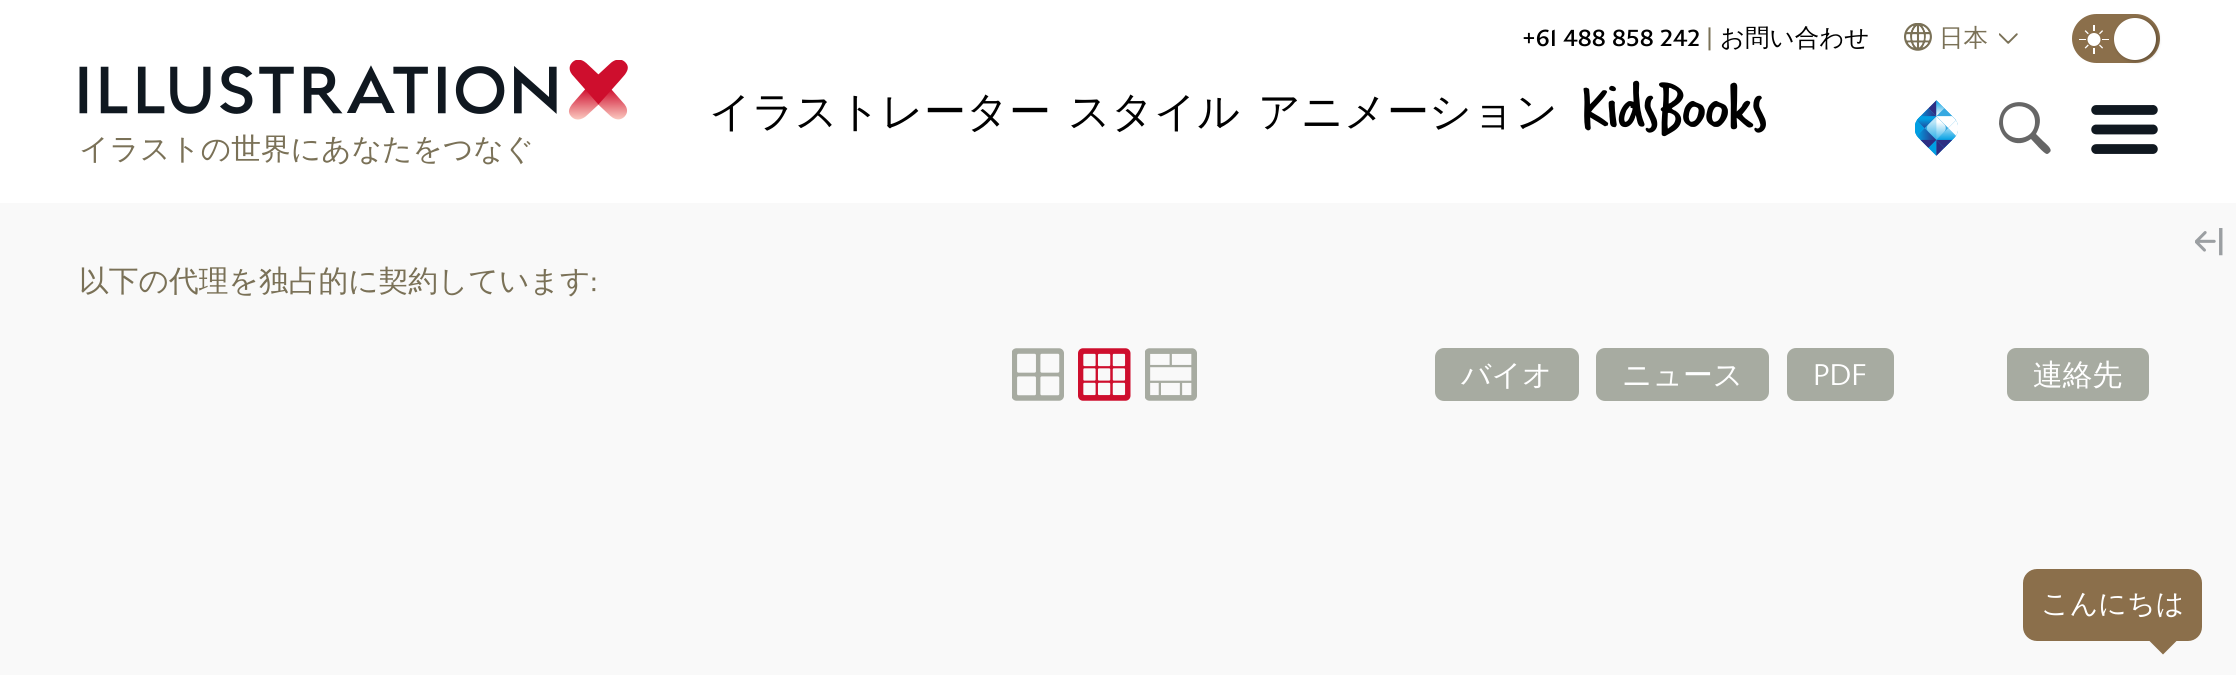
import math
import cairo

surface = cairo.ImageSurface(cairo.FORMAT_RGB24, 2236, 675)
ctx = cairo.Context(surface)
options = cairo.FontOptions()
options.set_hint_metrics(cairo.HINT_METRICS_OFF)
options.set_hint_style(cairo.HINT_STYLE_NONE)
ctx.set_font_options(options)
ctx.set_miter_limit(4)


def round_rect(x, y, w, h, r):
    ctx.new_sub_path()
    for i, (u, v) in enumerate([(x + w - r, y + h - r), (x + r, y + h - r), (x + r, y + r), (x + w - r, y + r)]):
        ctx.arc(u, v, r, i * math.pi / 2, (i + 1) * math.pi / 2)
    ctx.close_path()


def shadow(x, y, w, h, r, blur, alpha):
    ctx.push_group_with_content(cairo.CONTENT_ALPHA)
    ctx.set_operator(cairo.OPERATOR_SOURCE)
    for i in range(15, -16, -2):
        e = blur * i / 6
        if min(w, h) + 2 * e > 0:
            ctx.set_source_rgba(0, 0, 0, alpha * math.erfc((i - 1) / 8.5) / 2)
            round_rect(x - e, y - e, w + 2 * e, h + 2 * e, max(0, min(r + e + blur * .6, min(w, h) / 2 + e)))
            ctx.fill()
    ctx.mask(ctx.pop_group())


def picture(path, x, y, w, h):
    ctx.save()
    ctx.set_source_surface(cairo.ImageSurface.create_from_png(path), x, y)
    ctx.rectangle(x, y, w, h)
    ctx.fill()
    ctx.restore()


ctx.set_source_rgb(0.976, 0.976, 0.976)
ctx.paint()
ctx.set_source_rgb(1, 1, 1)
ctx.rectangle(0, 0, 2236, 203)
ctx.fill()
ctx.select_font_face("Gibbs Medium")
ctx.set_font_size(24.5)
ctx.set_source_rgb(0, 0, 0)
ctx.move_to(1522, 46)
ctx.show_text("+61 488 858 242")
ctx.set_source_rgb(0.478, 0.443, 0.341)
ctx.move_to(1706, 46)
ctx.show_text("|")
ctx.select_font_face("WenQuanYi Zen Hei Medium")
ctx.set_source_rgb(0, 0, 0)
ctx.move_to(1720, 46)
ctx.show_text("お問い合わせ")
picture("img1.png", 1904, 23, 28, 28)
picture("img2.png", 1999, 33, 19, 11)
ctx.set_source_rgb(0.478, 0.443, 0.341)
ctx.move_to(1939, 46)
ctx.show_text("日本")
ctx.set_source_rgb(0.545, 0.435, 0.294)
round_rect(2072, 14, 88, 49, 24.5)
ctx.fill()
picture("img3.png", 2079, 25, 30, 29)
ctx.set_source_rgb(0, 0, 0)
shadow(2116, 19, 42, 42, 21, 2, 0.3)
ctx.set_source_rgb(1, 1, 1)
ctx.arc(2135, 39, 21, 0, 2 * math.pi)
ctx.fill()
picture("img4.png", 79, 60, 549, 60)
ctx.set_font_size(29.75)
ctx.set_source_rgb(0.478, 0.443, 0.341)
ctx.move_to(79, 159)
ctx.show_text("イラストの世界にあなたをつなぐ")
ctx.set_font_size(42)
ctx.set_source_rgb(0, 0, 0)
ctx.move_to(709, 126)
ctx.show_text("イラストレーター")
ctx.move_to(1068, 126)
ctx.show_text("スタイル")
ctx.move_to(1258, 126)
ctx.show_text("アニメーション")
picture("img5.png", 1583, 80, 183, 57)
picture("img6.png", 1915, 100, 43, 56)
ctx.set_source_rgb(0.4, 0.4, 0.4)
ctx.new_path()
ctx.move_to(1999, 124)
ctx.curve_to(1999, 88, 2055, 100, 2036, 134)
ctx.line_to(2043, 141)
ctx.curve_to(2045, 143, 2053, 149, 2050, 152)
ctx.curve_to(2049, 153, 2048, 154, 2047, 154)
ctx.curve_to(2044, 154, 2034, 142, 2031, 139)
ctx.curve_to(2017, 149, 2001, 140, 1999, 124)
ctx.close_path()
ctx.move_to(2035, 122)
ctx.curve_to(2035, 101, 2003, 101, 2003, 122)
ctx.curve_to(2003, 144, 2035, 143, 2035, 122)
ctx.close_path()
ctx.fill()
picture("img7.png", 2091, 105, 67, 49)
picture("img8.png", 2195, 228, 28, 28)
ctx.set_font_size(29.75)
ctx.set_source_rgb(0.478, 0.443, 0.341)
ctx.move_to(79, 291)
ctx.show_text("以下の代理を独占的に契約しています")
ctx.select_font_face("Gibbs")
ctx.move_to(590, 291)
ctx.show_text(":")
picture("img9.png", 1012, 348, 52, 53)
picture("img10.png", 1078, 348, 53, 53)
picture("img11.png", 1145, 348, 52, 53)
ctx.set_source_rgb(0.655, 0.671, 0.631)
round_rect(1435, 348, 144, 53, 9)
ctx.fill()
ctx.select_font_face("WenQuanYi Zen Hei Medium")
ctx.set_source_rgb(1, 1, 1)
ctx.move_to(1461, 385)
ctx.show_text("バイオ")
ctx.set_source_rgb(0.655, 0.671, 0.631)
round_rect(1596, 348, 173, 53, 9)
ctx.fill()
ctx.set_source_rgb(1, 1, 1)
ctx.move_to(1622, 385)
ctx.show_text("ニュース")
ctx.set_source_rgb(0.655, 0.671, 0.631)
round_rect(1787, 348, 107, 53, 9)
ctx.fill()
ctx.select_font_face("Gibbs")
ctx.set_source_rgb(1, 1, 1)
ctx.move_to(1813, 385)
ctx.show_text("PDF")
ctx.set_source_rgb(0.655, 0.671, 0.631)
round_rect(2007, 348, 142, 53, 9)
ctx.fill()
ctx.select_font_face("WenQuanYi Zen Hei Medium")
ctx.set_source_rgb(1, 1, 1)
ctx.move_to(2033, 385)
ctx.show_text("連絡先")
ctx.set_source_rgb(0.545, 0.435, 0.294)
round_rect(2023, 569, 179, 72, 14)
ctx.fill()
ctx.set_font_size(28)
ctx.set_source_rgb(1, 1, 1)
ctx.move_to(2041, 613)
ctx.show_text("こんにちは")
ctx.set_source_rgb(0.545, 0.435, 0.294)
ctx.new_path()
ctx.move_to(2145.5, 637)
ctx.line_to(2180.5, 637)
ctx.line_to(2163, 654.5)
ctx.close_path()
ctx.fill()
surface.write_to_png("page.png")
